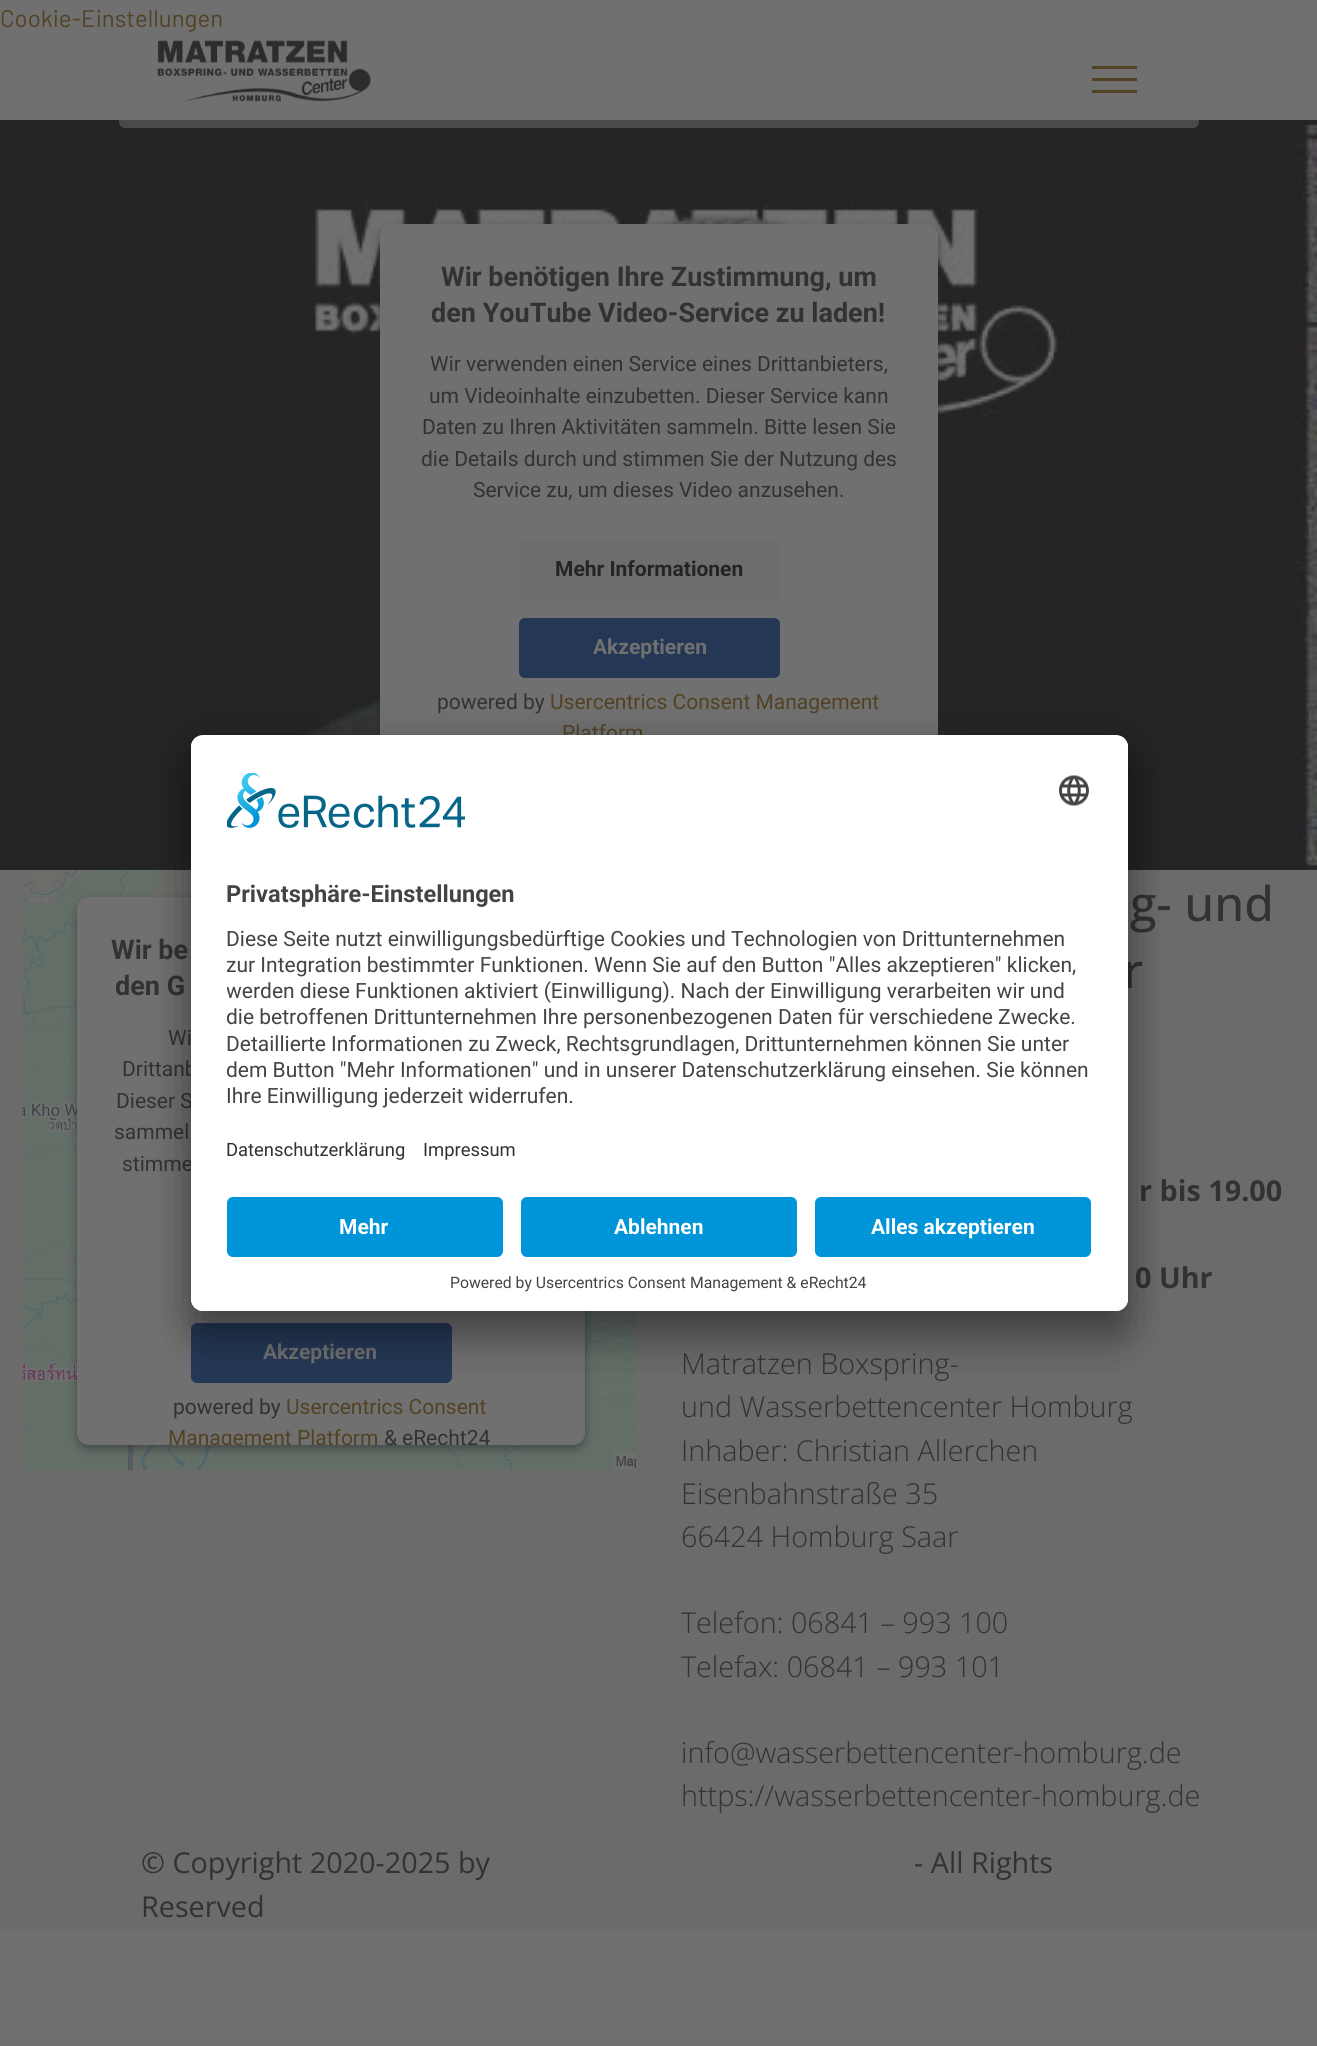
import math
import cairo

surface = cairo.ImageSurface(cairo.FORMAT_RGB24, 1317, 2046)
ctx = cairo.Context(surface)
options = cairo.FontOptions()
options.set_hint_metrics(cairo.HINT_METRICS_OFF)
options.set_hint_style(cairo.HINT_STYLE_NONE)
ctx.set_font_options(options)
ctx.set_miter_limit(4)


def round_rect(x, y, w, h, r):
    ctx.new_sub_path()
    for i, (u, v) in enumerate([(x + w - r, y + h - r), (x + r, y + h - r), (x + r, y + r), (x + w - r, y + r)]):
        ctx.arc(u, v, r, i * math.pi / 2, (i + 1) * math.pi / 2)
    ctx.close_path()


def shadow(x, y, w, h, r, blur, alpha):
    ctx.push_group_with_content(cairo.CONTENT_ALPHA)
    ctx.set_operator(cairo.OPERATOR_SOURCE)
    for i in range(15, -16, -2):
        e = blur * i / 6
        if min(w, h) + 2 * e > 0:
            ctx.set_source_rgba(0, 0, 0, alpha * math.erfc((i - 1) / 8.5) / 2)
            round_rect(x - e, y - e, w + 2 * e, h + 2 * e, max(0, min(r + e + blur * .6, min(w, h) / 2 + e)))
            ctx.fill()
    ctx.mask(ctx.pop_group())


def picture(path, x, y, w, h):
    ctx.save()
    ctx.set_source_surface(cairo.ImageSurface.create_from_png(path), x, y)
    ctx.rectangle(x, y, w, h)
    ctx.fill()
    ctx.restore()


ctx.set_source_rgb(0.439, 0.439, 0.439)
ctx.paint()
ctx.select_font_face("Barlow")
ctx.set_font_size(24)
ctx.set_source_rgb(0.322, 0.259, 0.141)
ctx.move_to(0, 27)
ctx.show_text("Cookie-Einstellungen")
picture("img2.png", 0, 120, 1317, 750)
ctx.set_source_rgba(0.439, 0.439, 0.439, 0.5)
round_rect(119, 32, 1080, 96, 6)
ctx.fill()
picture("img1.png", 157, 40, 214, 63)
ctx.set_source_rgb(0.322, 0.259, 0.141)
ctx.rectangle(1092, 66, 45, 3)
ctx.fill()
ctx.rectangle(1092, 78, 45, 3)
ctx.fill()
ctx.rectangle(1092, 90, 45, 3)
ctx.fill()
ctx.set_source_rgb(0.141, 0.141, 0.141)
shadow(380, 228, 558, 545, 12, 4.5, 0.5)
ctx.set_source_rgb(0.439, 0.439, 0.439)
round_rect(380, 224, 558, 544, 12)
ctx.fill()
ctx.select_font_face("Roboto", cairo.FONT_SLANT_NORMAL, cairo.FONT_WEIGHT_BOLD)
ctx.set_font_size(27)
ctx.set_source_rgb(0.196, 0.196, 0.196)
ctx.move_to(441, 286)
ctx.show_text("Wir benötigen Ihre Zustimmung, um")
ctx.move_to(431, 322)
ctx.show_text("den YouTube Video-Service zu laden!")
ctx.select_font_face("Roboto")
ctx.set_font_size(21)
ctx.move_to(430, 371)
ctx.show_text("Wir verwenden einen Service eines Drittanbieters,")
ctx.move_to(429, 403)
ctx.show_text("um Videoinhalte einzubetten. Dieser Service kann")
ctx.move_to(422, 434)
ctx.show_text("Daten zu Ihren Aktivitäten sammeln. Bitte lesen Sie")
ctx.move_to(421, 466)
ctx.show_text("die Details durch und stimmen Sie der Nutzung des")
ctx.move_to(473, 497)
ctx.show_text("Service zu, um dieses Video anzusehen.")
ctx.set_source_rgb(0.427, 0.427, 0.427)
round_rect(519, 540, 261, 60, 6)
ctx.fill()
ctx.select_font_face("Roboto", cairo.FONT_SLANT_NORMAL, cairo.FONT_WEIGHT_BOLD)
ctx.set_source_rgb(0.141, 0.141, 0.141)
ctx.move_to(555, 576)
ctx.show_text("Mehr Informationen")
ctx.set_source_rgb(0.141, 0.22, 0.333)
round_rect(519, 618, 261, 60, 6)
ctx.fill()
ctx.set_source_rgb(0.439, 0.439, 0.439)
ctx.move_to(593, 654)
ctx.show_text("Akzeptieren")
ctx.select_font_face("Roboto")
ctx.set_source_rgb(0.196, 0.196, 0.196)
ctx.move_to(437, 709)
ctx.show_text("powered by")
ctx.set_source_rgb(0.322, 0.259, 0.141)
ctx.move_to(550, 709)
ctx.show_text("Usercentrics Consent Management")
ctx.move_to(562, 740)
ctx.show_text("Platform")
ctx.set_source_rgb(0.42, 0.42, 0.42)
ctx.rectangle(0, 870, 1317, 1059)
ctx.fill()
picture("img3.png", 22, 870, 614, 600)
ctx.set_source_rgb(0.141, 0.141, 0.141)
shadow(77, 902, 508, 547, 12, 4.5, 0.5)
ctx.set_source_rgb(0.439, 0.439, 0.439)
round_rect(77, 897, 508, 548, 12)
ctx.fill()
ctx.select_font_face("Roboto", cairo.FONT_SLANT_NORMAL, cairo.FONT_WEIGHT_BOLD)
ctx.set_font_size(27)
ctx.set_source_rgb(0.196, 0.196, 0.196)
ctx.move_to(111, 959)
ctx.show_text("Wir be")
ctx.move_to(115, 995)
ctx.show_text("den G")
ctx.select_font_face("Roboto")
ctx.set_font_size(21)
ctx.move_to(168, 1045)
ctx.show_text("Wi")
ctx.move_to(122, 1076)
ctx.show_text("Drittanb")
ctx.move_to(116, 1108)
ctx.show_text("Dieser S")
ctx.move_to(114, 1139)
ctx.show_text("sammel")
ctx.move_to(122, 1171)
ctx.show_text("stimme")
ctx.set_source_rgb(0.141, 0.22, 0.333)
round_rect(191, 1323, 261, 60, 6)
ctx.fill()
ctx.select_font_face("Roboto", cairo.FONT_SLANT_NORMAL, cairo.FONT_WEIGHT_BOLD)
ctx.set_source_rgb(0.439, 0.439, 0.439)
ctx.move_to(263, 1359)
ctx.show_text("Akzeptieren")
ctx.select_font_face("Roboto")
ctx.set_source_rgb(0.196, 0.196, 0.196)
ctx.move_to(173, 1414)
ctx.show_text("powered by")
ctx.set_source_rgb(0.322, 0.259, 0.141)
ctx.move_to(286, 1414)
ctx.show_text("Usercentrics Consent")
ctx.save()
round_rect(77, 897, 508, 548, 12)
ctx.clip()
ctx.move_to(168, 1445)
ctx.show_text("Management Platform")
ctx.set_source_rgb(0.196, 0.196, 0.196)
ctx.move_to(384, 1445)
ctx.show_text("&")
ctx.move_to(402, 1445)
ctx.show_text("eRecht24")
ctx.restore()
ctx.select_font_face("Open Sans Medium")
ctx.set_font_size(48)
ctx.set_source_rgb(0.196, 0.196, 0.196)
ctx.move_to(1130, 921)
ctx.show_text("g- und")
ctx.move_to(1123, 988)
ctx.show_text("r")
ctx.select_font_face("Open Sans", cairo.FONT_SLANT_NORMAL, cairo.FONT_WEIGHT_BOLD)
ctx.set_font_size(28.75)
ctx.move_to(1139, 1201)
ctx.show_text("r bis 19.00")
ctx.move_to(1135, 1288)
ctx.show_text("0 Uhr")
ctx.select_font_face("Open Sans Light")
ctx.move_to(681, 1374)
ctx.show_text("Matratzen Boxspring-")
ctx.move_to(681, 1417)
ctx.show_text("und Wasserbettencenter Homburg")
ctx.move_to(681, 1461)
ctx.show_text("Inhaber: Christian Allerchen")
ctx.move_to(681, 1504)
ctx.show_text("Eisenbahnstraße 35")
ctx.move_to(681, 1547)
ctx.show_text("66424 Homburg Saar")
ctx.move_to(681, 1633)
ctx.show_text("Telefon: 06841 – 993 100")
ctx.move_to(681, 1677)
ctx.show_text("Telefax: 06841 – 993 101")
ctx.move_to(681, 1763)
ctx.show_text("info@wasserbettencenter-homburg.de")
ctx.move_to(681, 1806)
ctx.show_text("https://wasserbettencenter-homburg.de")
ctx.set_source_rgb(0, 0, 0)
shadow(191, 765, 937, 576, 12, 21, 0.3)
shadow(191, 743, 937, 576, 12, 19.5, 0.22)
ctx.set_source_rgb(1, 1, 1)
round_rect(191, 735, 937, 576, 12)
ctx.fill()
ctx.save()
round_rect(191, 735, 937, 576, 12)
ctx.clip()
ctx.new_path()
ctx.move_to(203, 735)
ctx.line_to(1116, 735)
ctx.curve_to(1122.5, 735, 1128, 740.5, 1128, 747)
ctx.line_to(1128, 1185)
ctx.line_to(191, 1185)
ctx.line_to(191, 747)
ctx.curve_to(191, 740.5, 196.5, 735, 203, 735)
ctx.close_path()
ctx.clip()
ctx.rectangle(191, 737, 937, 448)
ctx.fill()
ctx.restore()
picture("img4.png", 227, 773, 238, 55)
picture("img5.png", 1059, 775, 30, 31)
ctx.select_font_face("Roboto", cairo.FONT_SLANT_NORMAL, cairo.FONT_WEIGHT_BOLD)
ctx.set_font_size(23.6)
ctx.set_source_rgb(0.267, 0.267, 0.267)
ctx.move_to(226, 902)
ctx.show_text("Privatsphäre-Einstellungen")
ctx.select_font_face("Roboto")
ctx.set_font_size(21)
ctx.move_to(226, 946)
ctx.show_text("Diese Seite nutzt einwilligungsbedürftige Cookies und Technologien von Drittunternehmen")
ctx.save()
ctx.rectangle(227, 920, 865, 196)
ctx.clip()
ctx.move_to(226, 972)
ctx.show_text("zur Integration bestimmter Funktionen. Wenn Sie auf den Button \"Alles akzeptieren\" klicken,")
ctx.move_to(226, 998)
ctx.show_text("werden diese Funktionen aktiviert (Einwilligung). Nach der Einwilligung verarbeiten wir und")
ctx.move_to(226, 1024)
ctx.show_text("die betroffenen Drittunternehmen Ihre personenbezogenen Daten für verschiedene Zwecke.")
ctx.restore()
ctx.move_to(226, 1051)
ctx.show_text("Detaillierte Informationen zu Zweck, Rechtsgrundlagen, Drittunternehmen können Sie unter")
ctx.save()
ctx.rectangle(227, 920, 865, 196)
ctx.clip()
ctx.move_to(226, 1077)
ctx.show_text("dem Button \"Mehr Informationen\" und in unserer Datenschutzerklärung einsehen. Sie können")
ctx.restore()
ctx.move_to(226, 1103)
ctx.show_text("Ihre Einwilligung jederzeit widerrufen.")
ctx.set_font_size(18.4)
ctx.set_source_rgb(0.196, 0.196, 0.196)
ctx.move_to(226, 1156)
ctx.show_text("Datenschutzerklärung")
ctx.move_to(423, 1156)
ctx.show_text("Impressum")
ctx.set_source_rgb(1, 1, 1)
ctx.new_path()
ctx.move_to(191, 1185)
ctx.line_to(1128, 1185)
ctx.line_to(1128, 1299)
ctx.curve_to(1128, 1305.5, 1122.5, 1311, 1116, 1311)
ctx.line_to(203, 1311)
ctx.curve_to(196.5, 1311, 191, 1305.5, 191, 1299)
ctx.close_path()
ctx.fill()
ctx.set_source_rgb(0, 0.58, 0.847)
round_rect(227, 1197, 276, 60, 6)
ctx.fill()
ctx.select_font_face("Roboto", cairo.FONT_SLANT_NORMAL, cairo.FONT_WEIGHT_BOLD)
ctx.set_font_size(21)
ctx.set_source_rgb(1, 1, 1)
ctx.move_to(339, 1234)
ctx.show_text("Mehr")
ctx.set_source_rgb(0, 0.58, 0.847)
round_rect(521, 1197, 276, 60, 6)
ctx.fill()
ctx.set_source_rgb(1, 1, 1)
ctx.move_to(614, 1234)
ctx.show_text("Ablehnen")
ctx.set_source_rgb(0, 0.58, 0.847)
round_rect(815, 1197, 276, 60, 6)
ctx.fill()
ctx.set_source_rgb(1, 1, 1)
ctx.move_to(871, 1234)
ctx.show_text("Alles akzeptieren")
ctx.select_font_face("Roboto")
ctx.set_font_size(15.75)
ctx.set_source_rgb(0.267, 0.267, 0.267)
ctx.move_to(450, 1288)
ctx.show_text("Powered by Usercentrics Consent Management & eRecht24")
ctx.select_font_face("Open Sans")
ctx.set_font_size(28.75)
ctx.set_source_rgb(0.196, 0.196, 0.196)
ctx.move_to(141, 1873)
ctx.show_text("© Copyright 2020-2025 by")
ctx.move_to(914, 1873)
ctx.show_text("- All Rights")
ctx.move_to(141, 1917)
ctx.show_text("Reserved")
surface.write_to_png("page.png")
